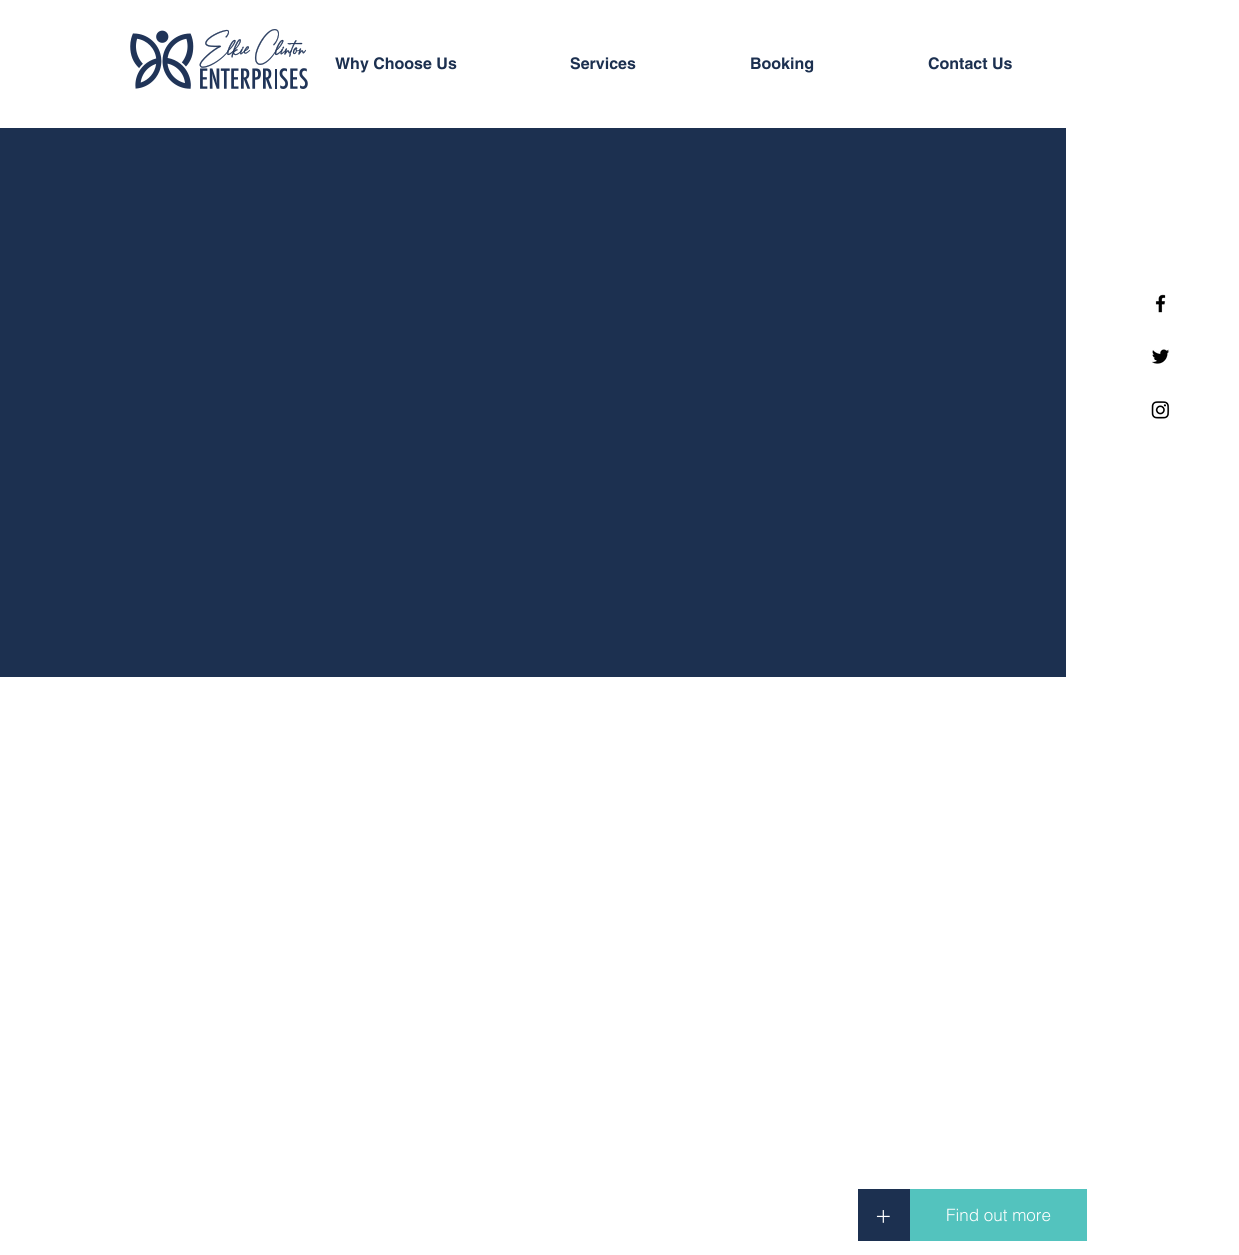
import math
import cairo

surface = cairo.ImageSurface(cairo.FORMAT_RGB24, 1239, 1255)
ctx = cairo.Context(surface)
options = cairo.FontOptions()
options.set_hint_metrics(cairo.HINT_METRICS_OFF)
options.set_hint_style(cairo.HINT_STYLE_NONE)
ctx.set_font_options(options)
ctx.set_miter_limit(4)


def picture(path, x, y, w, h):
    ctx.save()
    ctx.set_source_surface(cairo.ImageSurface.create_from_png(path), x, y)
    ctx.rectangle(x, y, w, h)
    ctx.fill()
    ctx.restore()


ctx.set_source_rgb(1, 1, 1)
ctx.paint()
picture("img1.png", 130, 29, 178, 60)
ctx.select_font_face("helvetica", cairo.FONT_SLANT_NORMAL, cairo.FONT_WEIGHT_BOLD)
ctx.set_font_size(16)
ctx.set_source_rgb(0.11, 0.188, 0.314)
ctx.move_to(335, 69)
ctx.show_text("Why Choose Us")
ctx.move_to(570, 69)
ctx.show_text("Services")
ctx.move_to(750, 69)
ctx.show_text("Booking")
ctx.move_to(928, 69)
ctx.show_text("Contact Us")
picture("img2.png", 1155, 294, 11, 19)
picture("img3.png", 1152, 349, 18, 15)
picture("img4.png", 1151, 401, 19, 18)
ctx.rectangle(0, 128, 1066, 549)
ctx.fill()
ctx.rectangle(858, 1189, 52, 52)
ctx.fill()
ctx.select_font_face("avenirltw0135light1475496 Light")
ctx.set_font_size(25)
ctx.set_source_rgb(1, 1, 1)
ctx.move_to(875, 1224)
ctx.show_text("+")
ctx.set_source_rgb(0.325, 0.765, 0.745)
ctx.rectangle(910, 1189, 177, 52)
ctx.fill()
ctx.select_font_face("helvetica Light")
ctx.set_font_size(17)
ctx.set_source_rgb(1, 1, 1)
ctx.move_to(946, 1221)
ctx.show_text("Find out more")
surface.write_to_png("page.png")
